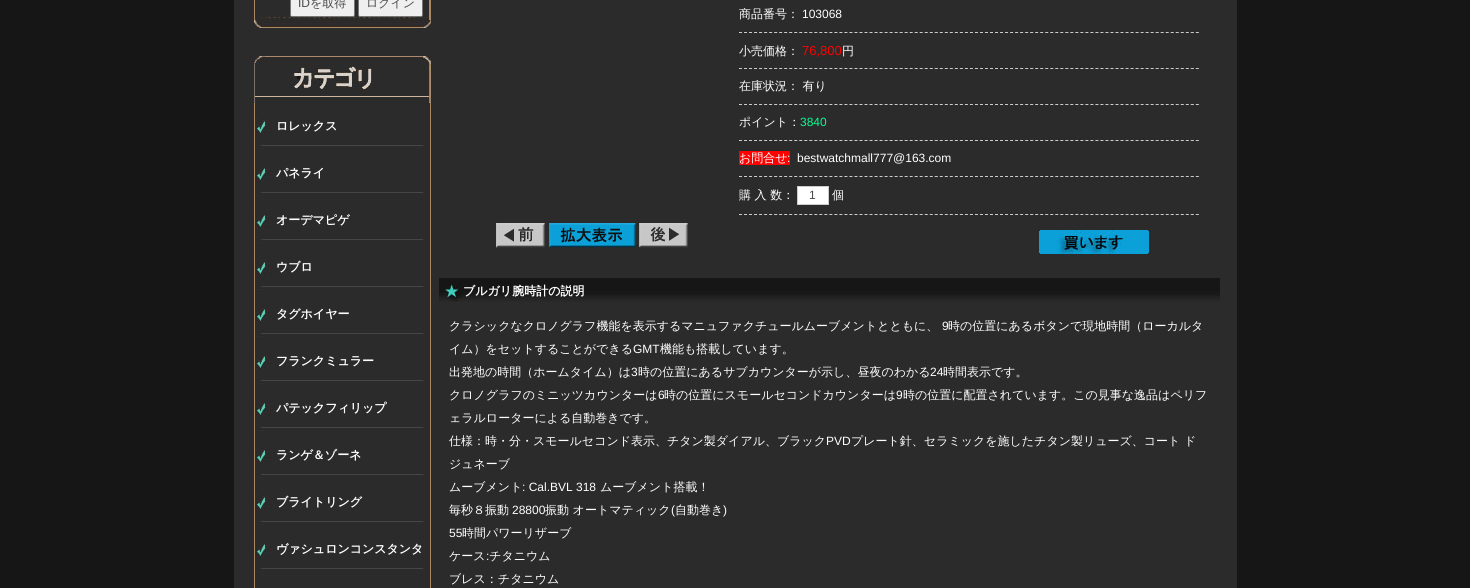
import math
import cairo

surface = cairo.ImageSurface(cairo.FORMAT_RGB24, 1470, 588)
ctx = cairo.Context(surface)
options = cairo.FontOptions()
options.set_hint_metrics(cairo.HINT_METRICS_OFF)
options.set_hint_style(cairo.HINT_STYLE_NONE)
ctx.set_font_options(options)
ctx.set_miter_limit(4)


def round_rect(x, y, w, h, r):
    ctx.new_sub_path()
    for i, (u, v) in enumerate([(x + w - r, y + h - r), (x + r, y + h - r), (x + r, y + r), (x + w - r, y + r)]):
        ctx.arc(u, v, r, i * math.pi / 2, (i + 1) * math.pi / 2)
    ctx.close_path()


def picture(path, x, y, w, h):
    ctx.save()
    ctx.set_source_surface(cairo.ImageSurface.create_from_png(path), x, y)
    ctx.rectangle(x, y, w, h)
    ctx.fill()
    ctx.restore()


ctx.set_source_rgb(0.086, 0.086, 0.086)
ctx.paint()
ctx.set_source_rgb(0.169, 0.169, 0.169)
ctx.rectangle(234, 0, 1003, 588)
ctx.fill()
picture("img1.png", 259, 15, 170, 5)
ctx.set_source_rgb(0.675, 0.537, 0.392)
ctx.rectangle(429, 0, 2, 20)
ctx.fill()
ctx.rectangle(254, 0, 1, 20)
ctx.fill()
ctx.set_source_rgb(0.937, 0.937, 0.937)
round_rect(290.5, -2.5, 64, 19, 1.5)
ctx.fill_preserve()
ctx.set_source_rgb(0.463, 0.463, 0.463)
ctx.set_line_width(1)
ctx.stroke()
ctx.select_font_face("Liberation Sans")
ctx.set_font_size(12)
ctx.set_source_rgb(0.286, 0.286, 0.286)
ctx.move_to(298, 7)
ctx.show_text("ID")
ctx.select_font_face("WenQuanYi Zen Hei Medium")
ctx.move_to(310, 7)
ctx.show_text("を取得")
ctx.set_source_rgb(0.937, 0.937, 0.937)
round_rect(358.5, -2.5, 64, 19, 1.5)
ctx.fill_preserve()
ctx.set_source_rgb(0.463, 0.463, 0.463)
ctx.stroke()
ctx.set_source_rgb(0.286, 0.286, 0.286)
ctx.move_to(366, 7)
ctx.show_text("ログイン")
picture("img2.png", 254, 20, 177, 8)
picture("img3.png", 248, 56, 183, 47)
picture("img4.png", 255, 119, 169, 30)
ctx.set_source_rgb(0.675, 0.537, 0.392)
ctx.rectangle(430, 103, 1, 485)
ctx.fill()
ctx.rectangle(254, 103, 1, 485)
ctx.fill()
ctx.select_font_face("WenQuanYi Zen Hei", cairo.FONT_SLANT_NORMAL, cairo.FONT_WEIGHT_BOLD)
ctx.set_source_rgb(1, 1, 1)
ctx.move_to(276, 130)
ctx.show_text("ロレックス")
picture("img4.png", 255, 166, 169, 30)
ctx.move_to(276, 177)
ctx.show_text("パネライ")
picture("img4.png", 255, 213, 169, 30)
ctx.move_to(276, 224)
ctx.show_text("オーデマピゲ")
picture("img4.png", 255, 260, 169, 30)
ctx.move_to(276, 271)
ctx.show_text("ウブロ")
picture("img4.png", 255, 307, 169, 30)
ctx.move_to(276, 318)
ctx.show_text("タグホイヤー")
picture("img4.png", 255, 354, 169, 30)
ctx.move_to(276, 365)
ctx.show_text("フランクミュラー")
picture("img4.png", 255, 401, 169, 30)
ctx.move_to(276, 412)
ctx.show_text("パテックフィリップ")
picture("img4.png", 255, 448, 169, 30)
ctx.move_to(276, 459)
ctx.show_text("ランゲ＆ゾーネ")
picture("img4.png", 255, 495, 169, 30)
ctx.move_to(276, 506)
ctx.show_text("ブライトリング")
picture("img4.png", 255, 542, 169, 30)
ctx.move_to(276, 553)
ctx.show_text("ヴァシュロンコンスタンタ")
ctx.new_path()
ctx.move_to(739, 32.5)
ctx.line_to(1199, 32.5)
ctx.set_source_rgb(0.8, 0.8, 0.8)
ctx.set_dash([3, 2.02])
ctx.stroke()
ctx.select_font_face("WenQuanYi Zen Hei Medium")
ctx.set_source_rgb(1, 1, 1)
ctx.move_to(739, 18)
ctx.show_text("商品番号：")
ctx.select_font_face("Liberation Sans")
ctx.move_to(802, 18)
ctx.show_text("103068")
ctx.new_path()
ctx.move_to(739, 68.5)
ctx.line_to(1199, 68.5)
ctx.set_source_rgb(0.8, 0.8, 0.8)
ctx.stroke()
ctx.select_font_face("WenQuanYi Zen Hei Medium")
ctx.set_source_rgb(1, 1, 1)
ctx.move_to(739, 55)
ctx.show_text("小売価格：")
ctx.select_font_face("Liberation Sans")
ctx.set_font_size(13)
ctx.set_source_rgb(1, 0, 0)
ctx.move_to(802, 55)
ctx.show_text("76,800")
ctx.select_font_face("WenQuanYi Zen Hei Medium")
ctx.set_font_size(12)
ctx.set_source_rgb(1, 1, 1)
ctx.move_to(842, 55)
ctx.show_text("円")
ctx.new_path()
ctx.move_to(739, 104.5)
ctx.line_to(1199, 104.5)
ctx.set_source_rgb(0.8, 0.8, 0.8)
ctx.stroke()
ctx.set_source_rgb(1, 1, 1)
ctx.move_to(739, 90)
ctx.show_text("在庫状況： 有り")
ctx.new_path()
ctx.move_to(739, 140.5)
ctx.line_to(1199, 140.5)
ctx.set_source_rgb(0.8, 0.8, 0.8)
ctx.stroke()
ctx.set_source_rgb(1, 1, 1)
ctx.move_to(739, 126)
ctx.show_text("ポイント：")
ctx.select_font_face("Liberation Sans")
ctx.set_source_rgb(0.024, 0.992, 0.576)
ctx.move_to(800, 126)
ctx.show_text("3840")
ctx.new_path()
ctx.move_to(739, 176.5)
ctx.line_to(1199, 176.5)
ctx.set_source_rgb(0.8, 0.8, 0.8)
ctx.stroke()
ctx.set_source_rgb(1, 0, 0)
ctx.rectangle(739, 151, 51, 14)
ctx.fill()
ctx.select_font_face("WenQuanYi Zen Hei Medium")
ctx.set_source_rgb(1, 1, 1)
ctx.move_to(739, 162)
ctx.show_text("お問合せ")
ctx.select_font_face("Liberation Sans")
ctx.move_to(787, 162)
ctx.show_text(":")
ctx.move_to(797, 162)
ctx.show_text("bestwatchmall777@163.com")
ctx.new_path()
ctx.move_to(739, 214.5)
ctx.line_to(1199, 214.5)
ctx.set_source_rgb(0.8, 0.8, 0.8)
ctx.stroke()
ctx.select_font_face("WenQuanYi Zen Hei Medium")
ctx.set_source_rgb(1, 1, 1)
ctx.move_to(739, 199)
ctx.show_text("購 入 数：")
ctx.rectangle(797.5, 186.5, 31, 18)
ctx.fill_preserve()
ctx.set_source_rgb(0.8, 0.8, 0.8)
ctx.set_dash([])
ctx.stroke()
ctx.select_font_face("Liberation Sans")
ctx.set_source_rgb(0.286, 0.286, 0.286)
ctx.move_to(809, 199)
ctx.show_text("1")
ctx.select_font_face("WenQuanYi Zen Hei Medium")
ctx.set_source_rgb(1, 1, 1)
ctx.move_to(832, 199)
ctx.show_text("個")
picture("img5.png", 1039, 230, 110, 24)
picture("img6.png", 496, 223, 49, 25)
picture("img7.png", 549, 223, 87, 25)
picture("img8.png", 639, 223, 49, 25)
picture("img9.png", 439, 278, 781, 24)
ctx.select_font_face("WenQuanYi Zen Hei", cairo.FONT_SLANT_NORMAL, cairo.FONT_WEIGHT_BOLD)
ctx.move_to(463, 295)
ctx.show_text("ブルガリ腕時計の説明")
ctx.select_font_face("WenQuanYi Zen Hei Medium")
ctx.move_to(449, 330)
ctx.show_text("クラシックなクロノグラフ機能を表示するマニュファクチュールムーブメントとともに、")
ctx.select_font_face("Liberation Sans")
ctx.move_to(942, 330)
ctx.show_text("9")
ctx.select_font_face("WenQuanYi Zen Hei Medium")
ctx.move_to(948, 330)
ctx.show_text("時の位置にあるボタンで現地時間（ローカルタ")
ctx.move_to(449, 353)
ctx.show_text("イム）をセットすることができる")
ctx.select_font_face("Liberation Sans")
ctx.move_to(633, 353)
ctx.show_text("GMT")
ctx.select_font_face("WenQuanYi Zen Hei Medium")
ctx.move_to(660, 353)
ctx.show_text("機能も搭載しています。")
ctx.move_to(449, 376)
ctx.show_text("出発地の時間（ホームタイム）は")
ctx.select_font_face("Liberation Sans")
ctx.move_to(631, 376)
ctx.show_text("3")
ctx.select_font_face("WenQuanYi Zen Hei Medium")
ctx.move_to(638, 376)
ctx.show_text("時の位置にあるサブカウンターが示し、昼夜のわかる")
ctx.select_font_face("Liberation Sans")
ctx.move_to(930, 376)
ctx.show_text("24")
ctx.select_font_face("WenQuanYi Zen Hei Medium")
ctx.move_to(943, 376)
ctx.show_text("時間表示です。")
ctx.move_to(449, 399)
ctx.show_text("クロノグラフのミニッツカウンターは")
ctx.select_font_face("Liberation Sans")
ctx.move_to(658, 399)
ctx.show_text("6")
ctx.select_font_face("WenQuanYi Zen Hei Medium")
ctx.move_to(664, 399)
ctx.show_text("時の位置にスモールセコンドカウンターは")
ctx.select_font_face("Liberation Sans")
ctx.move_to(896, 399)
ctx.show_text("9")
ctx.select_font_face("WenQuanYi Zen Hei Medium")
ctx.move_to(903, 399)
ctx.show_text("時の位置に配置されています。この見事な逸品はペリフ")
ctx.move_to(449, 422)
ctx.show_text("ェラルローターによる自動巻きです。")
ctx.move_to(449, 445)
ctx.show_text("仕様：時・分・スモールセコンド表示、チタン製ダイアル、ブラック")
ctx.select_font_face("Liberation Sans")
ctx.move_to(826, 445)
ctx.show_text("PVD")
ctx.select_font_face("WenQuanYi Zen Hei Medium")
ctx.move_to(851, 445)
ctx.show_text("プレート針、セラミックを施したチタン製リューズ、コート ド")
ctx.move_to(449, 468)
ctx.show_text("ジュネーブ")
ctx.move_to(449, 491)
ctx.show_text("ムーブメント")
ctx.select_font_face("Liberation Sans")
ctx.move_to(522, 491)
ctx.show_text(": Cal.BVL 318")
ctx.select_font_face("WenQuanYi Zen Hei Medium")
ctx.move_to(600, 491)
ctx.show_text("ムーブメント搭載！")
ctx.move_to(449, 514)
ctx.show_text("毎秒８振動")
ctx.select_font_face("Liberation Sans")
ctx.move_to(512, 514)
ctx.show_text("28800")
ctx.select_font_face("WenQuanYi Zen Hei Medium")
ctx.move_to(545, 514)
ctx.show_text("振動 オートマティック")
ctx.select_font_face("Liberation Sans")
ctx.move_to(671, 514)
ctx.show_text("(")
ctx.select_font_face("WenQuanYi Zen Hei Medium")
ctx.move_to(675, 514)
ctx.show_text("自動巻き")
ctx.select_font_face("Liberation Sans")
ctx.move_to(723, 514)
ctx.show_text(")")
ctx.move_to(449, 537)
ctx.show_text("55")
ctx.select_font_face("WenQuanYi Zen Hei Medium")
ctx.move_to(462, 537)
ctx.show_text("時間パワーリザーブ")
ctx.move_to(449, 560)
ctx.show_text("ケース チタニウム")
ctx.select_font_face("Liberation Sans")
ctx.move_to(486, 560)
ctx.show_text(":")
ctx.select_font_face("WenQuanYi Zen Hei Medium")
ctx.move_to(449, 583)
ctx.show_text("ブレス：チタニウム")
surface.write_to_png("page.png")
